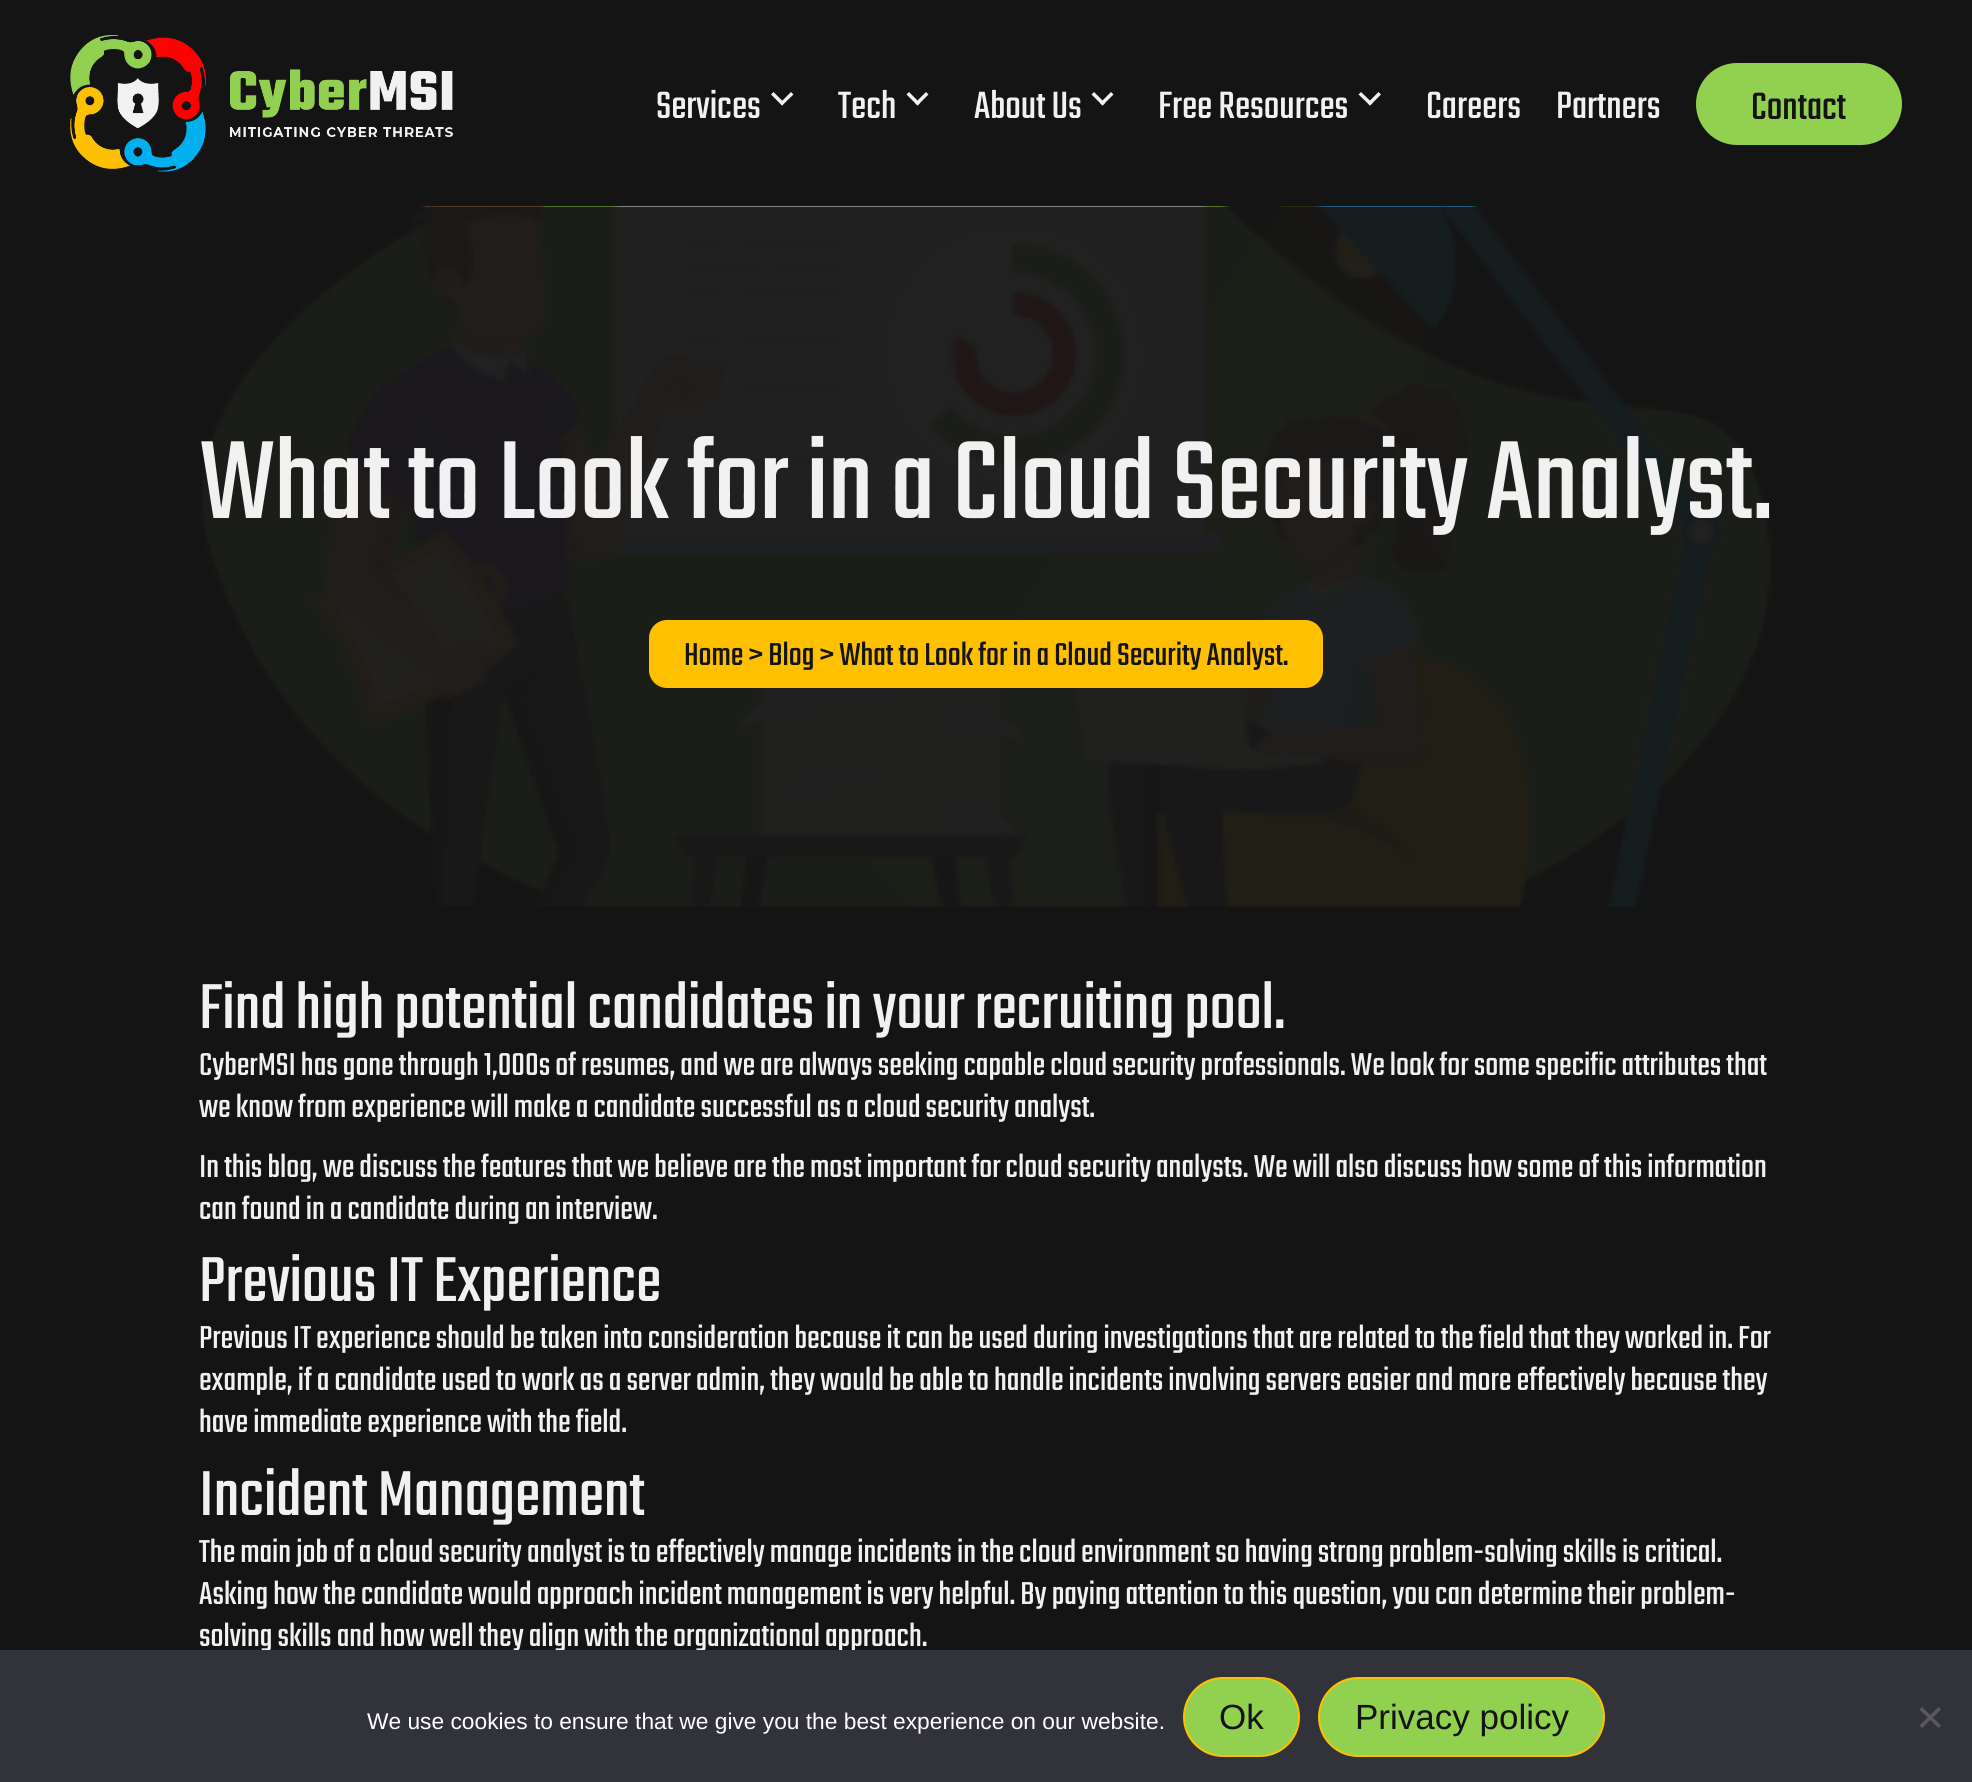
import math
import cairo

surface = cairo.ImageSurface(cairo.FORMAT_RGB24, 1972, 1782)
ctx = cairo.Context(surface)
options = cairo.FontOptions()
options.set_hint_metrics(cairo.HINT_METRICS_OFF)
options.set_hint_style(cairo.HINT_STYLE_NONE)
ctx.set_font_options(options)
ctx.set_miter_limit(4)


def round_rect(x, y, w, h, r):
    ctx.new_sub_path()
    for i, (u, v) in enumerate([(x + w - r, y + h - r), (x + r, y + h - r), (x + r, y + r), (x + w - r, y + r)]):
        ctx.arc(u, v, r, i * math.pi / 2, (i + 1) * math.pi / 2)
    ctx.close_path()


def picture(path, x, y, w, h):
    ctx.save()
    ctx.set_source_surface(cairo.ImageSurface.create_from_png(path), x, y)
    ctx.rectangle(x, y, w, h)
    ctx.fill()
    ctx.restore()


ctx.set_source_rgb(0.082, 0.082, 0.082)
ctx.paint()
picture("img1.png", 70, 35, 383, 137)
ctx.select_font_face("Teko")
ctx.set_font_size(42)
ctx.set_source_rgb(0.945, 0.945, 0.945)
ctx.move_to(656, 118)
ctx.show_text("Services")
ctx.new_path()
ctx.move_to(791, 92)
ctx.line_to(793.5, 94.5)
ctx.line_to(782, 105.5)
ctx.line_to(780, 103)
ctx.close_path()
ctx.fill()
ctx.new_path()
ctx.move_to(773.5, 92)
ctx.line_to(784.5, 103)
ctx.line_to(782, 105.5)
ctx.line_to(771, 94.5)
ctx.close_path()
ctx.fill()
ctx.move_to(838, 118)
ctx.show_text("Tech")
ctx.new_path()
ctx.move_to(926, 92)
ctx.line_to(928.5, 94.5)
ctx.line_to(917.5, 105.5)
ctx.line_to(915, 103)
ctx.close_path()
ctx.fill()
ctx.new_path()
ctx.move_to(909, 92)
ctx.line_to(920, 103)
ctx.line_to(917.5, 105.5)
ctx.line_to(906.5, 94.5)
ctx.close_path()
ctx.fill()
ctx.move_to(974, 118)
ctx.show_text("About Us")
ctx.new_path()
ctx.move_to(1111, 92)
ctx.line_to(1113.5, 94.5)
ctx.line_to(1102.5, 105.5)
ctx.line_to(1100, 103)
ctx.close_path()
ctx.fill()
ctx.new_path()
ctx.move_to(1094, 92)
ctx.line_to(1105, 103)
ctx.line_to(1102.5, 105.5)
ctx.line_to(1091.5, 94.5)
ctx.close_path()
ctx.fill()
ctx.move_to(1158, 118)
ctx.show_text("Free Resources")
ctx.new_path()
ctx.move_to(1378.5, 92)
ctx.line_to(1381, 94.5)
ctx.line_to(1370, 105.5)
ctx.line_to(1367.5, 103)
ctx.close_path()
ctx.fill()
ctx.new_path()
ctx.move_to(1361, 92)
ctx.line_to(1372.5, 103)
ctx.line_to(1370, 105.5)
ctx.line_to(1358.5, 94.5)
ctx.close_path()
ctx.fill()
ctx.move_to(1426, 118)
ctx.show_text("Careers")
ctx.move_to(1556, 118)
ctx.show_text("Partners")
ctx.set_source_rgb(0.573, 0.816, 0.314)
round_rect(1698, 65, 202, 78, 39)
ctx.fill_preserve()
ctx.set_line_width(4)
ctx.stroke()
ctx.set_source_rgb(0.082, 0.082, 0.082)
ctx.move_to(1751, 119)
ctx.show_text("Contact")
picture("img2.png", 200, 206, 1573, 701)
ctx.set_font_size(122.5)
ctx.set_source_rgb(0.945, 0.945, 0.945)
ctx.move_to(200, 518)
ctx.show_text("What to Look for in a Cloud Security Analyst.")
ctx.set_source_rgb(1, 0.753, 0)
round_rect(649, 620, 674, 68, 18)
ctx.fill()
ctx.set_font_size(35)
ctx.set_source_rgb(0.082, 0.082, 0.082)
ctx.move_to(684, 665)
ctx.show_text("Home > Blog > What to Look for in a Cloud Security Analyst.")
ctx.set_font_size(70)
ctx.set_source_rgb(0.945, 0.945, 0.945)
ctx.move_to(199, 1028)
ctx.show_text("Find high potential candidates in your recruiting pool.")
ctx.set_font_size(35)
ctx.move_to(199, 1075)
ctx.show_text("CyberMSI has gone through 1,000s of resumes, and we are always seeking capable cloud security professionals. We look for some specific attributes that")
ctx.move_to(199, 1117)
ctx.show_text("we know from experience will make a candidate successful as a cloud security analyst.")
ctx.move_to(199, 1177)
ctx.show_text("In this blog, we discuss the features that we believe are the most important for cloud security analysts. We will also discuss how some of this information")
ctx.move_to(199, 1219)
ctx.show_text("can found in a candidate during an interview.")
ctx.set_font_size(70)
ctx.move_to(199, 1301)
ctx.show_text("Previous IT Experience")
ctx.set_font_size(35)
ctx.move_to(199, 1348)
ctx.show_text("Previous IT experience should be taken into consideration because it can be used during investigations that are related to the field that they worked in. For")
ctx.move_to(199, 1390)
ctx.show_text("example, if a candidate used to work as a server admin, they would be able to handle incidents involving servers easier and more effectively because they")
ctx.move_to(199, 1432)
ctx.show_text("have immediate experience with the field.")
ctx.set_font_size(70)
ctx.move_to(199, 1515)
ctx.show_text("Incident Management")
ctx.set_font_size(35)
ctx.move_to(199, 1562)
ctx.show_text("The main job of a cloud security analyst is to effectively manage incidents in the cloud environment so having strong problem-solving skills is critical.")
ctx.move_to(199, 1604)
ctx.show_text("Asking how the candidate would approach incident management is very helpful. By paying attention to this question, you can determine their problem-")
ctx.move_to(199, 1646)
ctx.show_text("solving skills and how well they align with the organizational approach.")
ctx.set_source_rgb(0.196, 0.196, 0.227)
ctx.rectangle(0, 1650, 1972, 132)
ctx.fill()
ctx.select_font_face("Liberation Sans")
ctx.set_font_size(22.75)
ctx.set_source_rgb(1, 1, 1)
ctx.move_to(367, 1729)
ctx.show_text("We use cookies to ensure that we give you the best experience on our website.")
ctx.set_source_rgb(0.573, 0.816, 0.314)
round_rect(1184, 1678, 115, 78, 39)
ctx.fill_preserve()
ctx.set_source_rgb(1, 0.753, 0)
ctx.set_line_width(2)
ctx.stroke()
ctx.set_font_size(35)
ctx.set_source_rgb(0.082, 0.082, 0.082)
ctx.move_to(1219, 1729)
ctx.show_text("Ok")
ctx.set_source_rgb(0.573, 0.816, 0.314)
round_rect(1319, 1678, 285, 78, 39)
ctx.fill_preserve()
ctx.set_source_rgb(1, 0.753, 0)
ctx.stroke()
ctx.set_source_rgb(0.082, 0.082, 0.082)
ctx.move_to(1355, 1729)
ctx.show_text("Privacy policy")
ctx.set_source_rgb(0.349, 0.349, 0.365)
ctx.new_path()
ctx.move_to(1938.5, 1707)
ctx.line_to(1941, 1709.5)
ctx.line_to(1922, 1728)
ctx.line_to(1919.5, 1725.5)
ctx.close_path()
ctx.fill()
ctx.new_path()
ctx.move_to(1919.5, 1709.5)
ctx.line_to(1922, 1707)
ctx.line_to(1941, 1725.5)
ctx.line_to(1938.5, 1728)
ctx.close_path()
ctx.fill()
surface.write_to_png("page.png")
